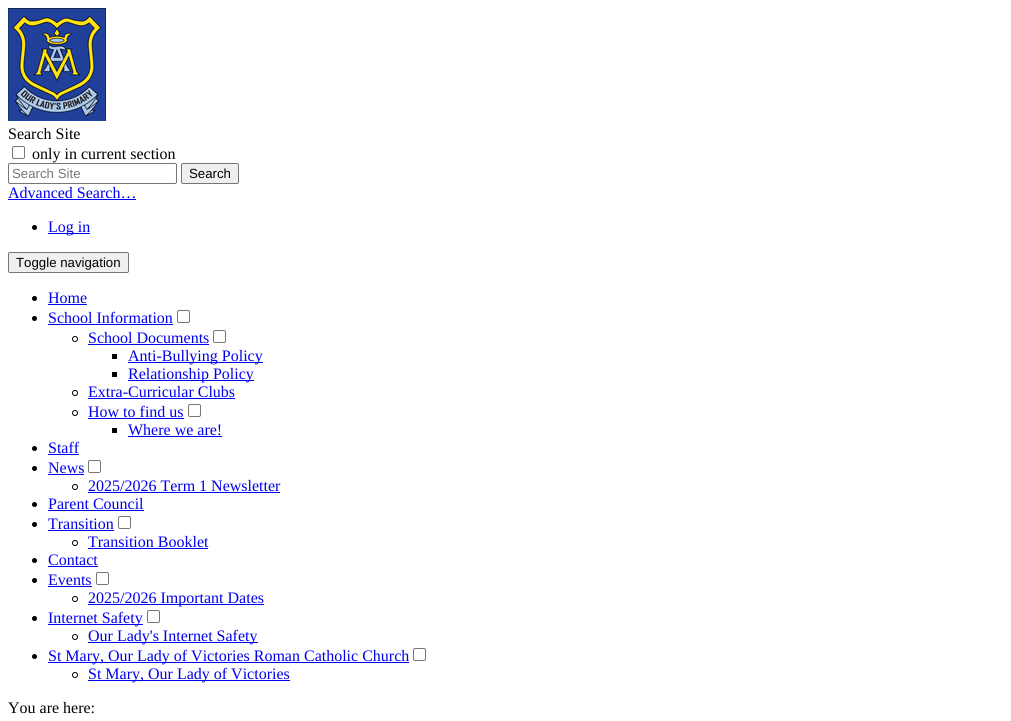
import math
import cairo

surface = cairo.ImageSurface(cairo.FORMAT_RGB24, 1011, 721)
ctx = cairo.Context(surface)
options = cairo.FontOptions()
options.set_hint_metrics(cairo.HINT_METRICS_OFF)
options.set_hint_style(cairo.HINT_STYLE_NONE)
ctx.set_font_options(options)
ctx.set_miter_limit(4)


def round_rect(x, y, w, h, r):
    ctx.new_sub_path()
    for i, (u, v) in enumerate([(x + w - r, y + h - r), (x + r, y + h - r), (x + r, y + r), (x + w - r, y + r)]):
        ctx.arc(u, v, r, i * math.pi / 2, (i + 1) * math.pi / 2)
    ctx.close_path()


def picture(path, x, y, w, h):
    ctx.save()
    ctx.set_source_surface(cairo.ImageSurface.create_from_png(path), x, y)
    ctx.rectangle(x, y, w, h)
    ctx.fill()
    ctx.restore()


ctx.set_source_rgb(1, 1, 1)
ctx.paint()
picture("img1.png", 8, 8, 98, 113)
ctx.select_font_face("Liberation Serif")
ctx.set_font_size(16)
ctx.set_source_rgb(0, 0, 0)
ctx.move_to(8, 139)
ctx.show_text("Search Site")
round_rect(12.5, 146.5, 12, 12, 1.5)
ctx.set_source_rgb(0.463, 0.463, 0.463)
ctx.set_line_width(1)
ctx.stroke()
ctx.set_source_rgb(0, 0, 0)
ctx.move_to(32, 159)
ctx.show_text("only in current section")
round_rect(8.5, 163.5, 168, 20, 1.5)
ctx.set_source_rgb(0.463, 0.463, 0.463)
ctx.stroke()
ctx.select_font_face("Liberation Sans")
ctx.set_font_size(13.25)
ctx.set_source_rgb(0.459, 0.459, 0.459)
ctx.move_to(12, 178)
ctx.show_text("Search Site")
ctx.set_source_rgb(0.937, 0.937, 0.937)
round_rect(181.5, 163.5, 57, 20, 1.5)
ctx.fill_preserve()
ctx.set_source_rgb(0.463, 0.463, 0.463)
ctx.stroke()
ctx.set_source_rgb(0, 0, 0)
ctx.move_to(189, 178)
ctx.show_text("Search")
ctx.select_font_face("Liberation Serif")
ctx.set_font_size(16)
ctx.set_source_rgb(0, 0, 0.933)
ctx.move_to(8, 198)
ctx.show_text("Advanced Search…")
ctx.rectangle(8, 199, 128, 1)
ctx.fill()
ctx.set_source_rgb(0, 0, 0)
ctx.arc(34.5, 227.5, 2.5, 0, 2 * math.pi)
ctx.fill()
ctx.set_source_rgb(0, 0, 0.933)
ctx.rectangle(48, 233, 42, 1)
ctx.fill()
ctx.move_to(48, 232)
ctx.show_text("Log in")
ctx.set_source_rgb(0.937, 0.937, 0.937)
round_rect(8.5, 252.5, 120, 20, 1.5)
ctx.fill_preserve()
ctx.set_source_rgb(0.463, 0.463, 0.463)
ctx.stroke()
ctx.select_font_face("Liberation Sans")
ctx.set_font_size(13.25)
ctx.set_source_rgb(0, 0, 0)
ctx.move_to(16, 267)
ctx.show_text("Toggle navigation")
ctx.new_path()
ctx.arc(34.5, 298.5, 2.5, 0, 2 * math.pi)
ctx.fill()
ctx.select_font_face("Liberation Serif")
ctx.set_font_size(16)
ctx.set_source_rgb(0, 0, 0.933)
ctx.move_to(48, 303)
ctx.show_text("Home")
ctx.rectangle(48, 304, 39, 1)
ctx.fill()
ctx.set_source_rgb(0, 0, 0)
ctx.arc(34.5, 318.5, 2.5, 0, 2 * math.pi)
ctx.fill()
ctx.set_source_rgb(0, 0, 0.933)
ctx.move_to(48, 323)
ctx.show_text("School Information")
ctx.rectangle(48, 324, 125, 1)
ctx.fill()
round_rect(177.5, 310.5, 12, 12, 1.5)
ctx.set_source_rgb(0.463, 0.463, 0.463)
ctx.stroke()
ctx.arc(75, 339, 2.5, 0, 2 * math.pi)
ctx.set_source_rgb(0, 0, 0)
ctx.stroke()
ctx.set_source_rgb(0, 0, 0.933)
ctx.move_to(88, 343)
ctx.show_text("School Documents")
ctx.rectangle(88, 344, 121, 1)
ctx.fill()
round_rect(213.5, 330.5, 12, 12, 1.5)
ctx.set_source_rgb(0.463, 0.463, 0.463)
ctx.stroke()
ctx.set_source_rgb(0, 0, 0)
ctx.rectangle(112, 354, 5, 5)
ctx.fill()
ctx.set_source_rgb(0, 0, 0.933)
ctx.rectangle(128, 362, 135, 1)
ctx.fill()
ctx.move_to(128, 361)
ctx.show_text("Anti-Bullying Policy")
ctx.set_source_rgb(0, 0, 0)
ctx.rectangle(112, 372, 5, 5)
ctx.fill()
ctx.set_source_rgb(0, 0, 0.933)
ctx.rectangle(128, 380, 126, 1)
ctx.fill()
ctx.move_to(128, 379)
ctx.show_text("Relationship Policy")
ctx.new_path()
ctx.arc(75, 393, 2.5, 0, 2 * math.pi)
ctx.set_source_rgb(0, 0, 0)
ctx.stroke()
ctx.set_source_rgb(0, 0, 0.933)
ctx.move_to(88, 397)
ctx.show_text("Extra-Curricular Clubs")
ctx.rectangle(88, 398, 147, 1)
ctx.fill()
ctx.arc(75, 413, 2.5, 0, 2 * math.pi)
ctx.set_source_rgb(0, 0, 0)
ctx.stroke()
ctx.set_source_rgb(0, 0, 0.933)
ctx.move_to(88, 417)
ctx.show_text("How to find us")
ctx.rectangle(88, 418, 96, 1)
ctx.fill()
round_rect(188.5, 404.5, 12, 12, 1.5)
ctx.set_source_rgb(0.463, 0.463, 0.463)
ctx.stroke()
ctx.set_source_rgb(0, 0, 0)
ctx.rectangle(112, 428, 5, 5)
ctx.fill()
ctx.set_source_rgb(0, 0, 0.933)
ctx.move_to(128, 435)
ctx.show_text("Where we are!")
ctx.rectangle(128, 436, 94, 1)
ctx.fill()
ctx.set_source_rgb(0, 0, 0)
ctx.arc(34.5, 448.5, 2.5, 0, 2 * math.pi)
ctx.fill()
ctx.set_source_rgb(0, 0, 0.933)
ctx.move_to(48, 453)
ctx.show_text("Staff")
ctx.rectangle(48, 454, 31, 1)
ctx.fill()
ctx.set_source_rgb(0, 0, 0)
ctx.arc(34.5, 468.5, 2.5, 0, 2 * math.pi)
ctx.fill()
ctx.set_source_rgb(0, 0, 0.933)
ctx.move_to(48, 473)
ctx.show_text("News")
ctx.rectangle(48, 474, 36, 1)
ctx.fill()
round_rect(88.5, 460.5, 12, 12, 1.5)
ctx.set_source_rgb(0.463, 0.463, 0.463)
ctx.stroke()
ctx.arc(75, 487, 2.5, 0, 2 * math.pi)
ctx.set_source_rgb(0, 0, 0)
ctx.stroke()
ctx.set_source_rgb(0, 0, 0.933)
ctx.move_to(88, 491)
ctx.show_text("2025/2026 Term 1 Newsletter")
ctx.rectangle(88, 492, 192, 1)
ctx.fill()
ctx.set_source_rgb(0, 0, 0)
ctx.arc(34.5, 504.5, 2.5, 0, 2 * math.pi)
ctx.fill()
ctx.set_source_rgb(0, 0, 0.933)
ctx.move_to(48, 509)
ctx.show_text("Parent Council")
ctx.rectangle(48, 510, 96, 1)
ctx.fill()
ctx.set_source_rgb(0, 0, 0)
ctx.arc(34.5, 524.5, 2.5, 0, 2 * math.pi)
ctx.fill()
ctx.set_source_rgb(0, 0, 0.933)
ctx.move_to(48, 529)
ctx.show_text("Transition")
ctx.rectangle(48, 530, 66, 1)
ctx.fill()
round_rect(118.5, 516.5, 12, 12, 1.5)
ctx.set_source_rgb(0.463, 0.463, 0.463)
ctx.stroke()
ctx.arc(75, 543, 2.5, 0, 2 * math.pi)
ctx.set_source_rgb(0, 0, 0)
ctx.stroke()
ctx.set_source_rgb(0, 0, 0.933)
ctx.move_to(88, 547)
ctx.show_text("Transition Booklet")
ctx.rectangle(88, 548, 120, 1)
ctx.fill()
ctx.set_source_rgb(0, 0, 0)
ctx.arc(34.5, 560.5, 2.5, 0, 2 * math.pi)
ctx.fill()
ctx.set_source_rgb(0, 0, 0.933)
ctx.move_to(48, 565)
ctx.show_text("Contact")
ctx.rectangle(48, 566, 50, 1)
ctx.fill()
ctx.set_source_rgb(0, 0, 0)
ctx.arc(34.5, 580.5, 2.5, 0, 2 * math.pi)
ctx.fill()
ctx.set_source_rgb(0, 0, 0.933)
ctx.move_to(48, 585)
ctx.show_text("Events")
ctx.rectangle(48, 586, 44, 1)
ctx.fill()
round_rect(96.5, 572.5, 12, 12, 1.5)
ctx.set_source_rgb(0.463, 0.463, 0.463)
ctx.stroke()
ctx.arc(75, 599, 2.5, 0, 2 * math.pi)
ctx.set_source_rgb(0, 0, 0)
ctx.stroke()
ctx.set_source_rgb(0, 0, 0.933)
ctx.rectangle(88, 604, 176, 1)
ctx.fill()
ctx.move_to(88, 603)
ctx.show_text("2025/2026 Important Dates")
ctx.set_source_rgb(0, 0, 0)
ctx.new_path()
ctx.arc(34.5, 618.5, 2.5, 0, 2 * math.pi)
ctx.fill()
ctx.set_source_rgb(0, 0, 0.933)
ctx.rectangle(48, 624, 95, 1)
ctx.fill()
ctx.move_to(48, 623)
ctx.show_text("Internet Safety")
round_rect(147.5, 610.5, 12, 12, 1.5)
ctx.set_source_rgb(0.463, 0.463, 0.463)
ctx.stroke()
ctx.arc(75, 637, 2.5, 0, 2 * math.pi)
ctx.set_source_rgb(0, 0, 0)
ctx.stroke()
ctx.set_source_rgb(0, 0, 0.933)
ctx.rectangle(88, 642, 170, 1)
ctx.fill()
ctx.move_to(88, 641)
ctx.show_text("Our Lady's Internet Safety")
ctx.set_source_rgb(0, 0, 0)
ctx.new_path()
ctx.arc(34.5, 656.5, 2.5, 0, 2 * math.pi)
ctx.fill()
ctx.set_source_rgb(0, 0, 0.933)
ctx.rectangle(48, 662, 361, 1)
ctx.fill()
ctx.move_to(48, 661)
ctx.show_text("St Mary, Our Lady of Victories Roman Catholic Church")
round_rect(413.5, 648.5, 12, 12, 1.5)
ctx.set_source_rgb(0.463, 0.463, 0.463)
ctx.stroke()
ctx.arc(75, 675, 2.5, 0, 2 * math.pi)
ctx.set_source_rgb(0, 0, 0)
ctx.stroke()
ctx.set_source_rgb(0, 0, 0.933)
ctx.rectangle(88, 680, 202, 1)
ctx.fill()
ctx.move_to(88, 679)
ctx.show_text("St Mary, Our Lady of Victories")
ctx.set_source_rgb(0, 0, 0)
ctx.move_to(8, 713)
ctx.show_text("You are here:")
surface.write_to_png("page.png")
